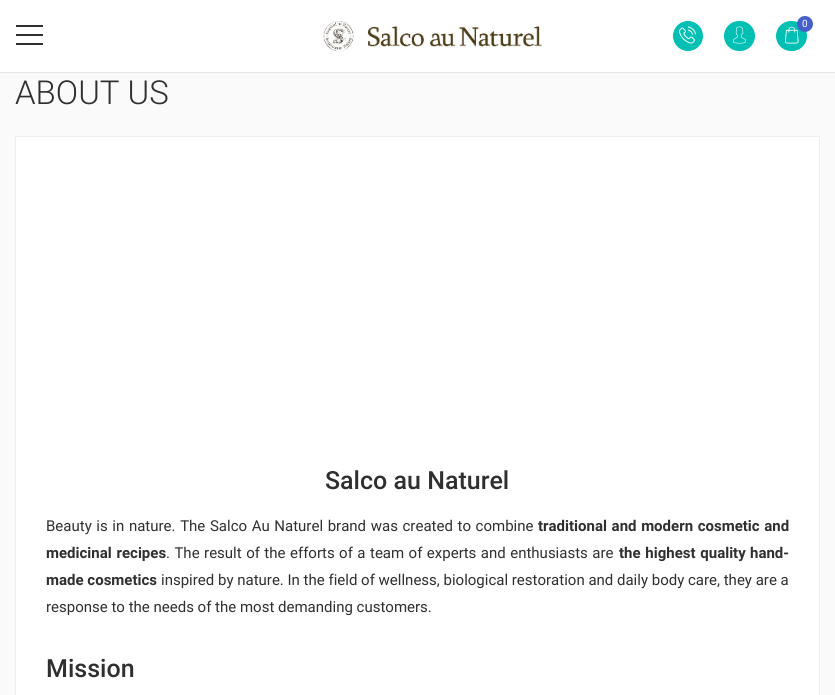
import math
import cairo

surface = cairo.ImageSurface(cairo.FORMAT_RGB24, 835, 695)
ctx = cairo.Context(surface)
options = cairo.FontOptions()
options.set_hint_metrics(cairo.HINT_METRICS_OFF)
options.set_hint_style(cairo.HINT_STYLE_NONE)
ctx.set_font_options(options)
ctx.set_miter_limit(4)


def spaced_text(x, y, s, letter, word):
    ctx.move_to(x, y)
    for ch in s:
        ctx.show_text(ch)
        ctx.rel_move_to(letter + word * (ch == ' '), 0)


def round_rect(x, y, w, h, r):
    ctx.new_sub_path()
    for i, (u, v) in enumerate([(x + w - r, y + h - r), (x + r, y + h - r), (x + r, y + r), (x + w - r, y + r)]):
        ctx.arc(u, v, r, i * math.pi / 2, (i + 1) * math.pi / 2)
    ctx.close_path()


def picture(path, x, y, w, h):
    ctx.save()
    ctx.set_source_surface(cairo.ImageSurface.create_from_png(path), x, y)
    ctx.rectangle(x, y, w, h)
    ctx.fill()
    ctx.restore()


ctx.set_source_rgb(0.98, 0.98, 0.98)
ctx.paint()
ctx.set_source_rgb(1, 1, 1)
ctx.rectangle(0, 0, 835, 72)
ctx.fill()
ctx.set_source_rgb(0.898, 0.898, 0.898)
ctx.rectangle(0, 72, 835, 1)
ctx.fill()
ctx.set_source_rgb(0.184, 0.184, 0.184)
ctx.rectangle(16, 25, 27, 2)
ctx.fill()
ctx.rectangle(16, 34, 27, 2)
ctx.fill()
ctx.rectangle(16, 43, 27, 2)
ctx.fill()
picture("img1.png", 323, 21, 219, 31)
ctx.set_source_rgb(0, 0.749, 0.702)
ctx.arc(688, 36, 15, 0, 2 * math.pi)
ctx.fill()
picture("img2.png", 679, 26, 17, 18)
round_rect(724, 21, 31, 30, 15)
ctx.fill()
picture("img3.png", 733, 26, 13, 18)
round_rect(776, 21, 31, 30, 15)
ctx.fill()
picture("img4.png", 785, 26, 14, 18)
ctx.set_source_rgb(0.275, 0.373, 0.796)
ctx.arc(805, 24, 8, 0, 2 * math.pi)
ctx.fill()
ctx.select_font_face("Roboto")
ctx.set_font_size(10)
ctx.set_source_rgb(1, 1, 1)
ctx.move_to(802, 27)
ctx.show_text("0")
ctx.select_font_face("Roboto Light")
ctx.set_font_size(33)
ctx.set_source_rgb(0.184, 0.184, 0.184)
ctx.move_to(15, 104)
ctx.show_text("ABOUT US")
ctx.set_source_rgb(1, 1, 1)
ctx.rectangle(15.5, 136.5, 804, 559)
ctx.fill_preserve()
ctx.set_source_rgb(0.937, 0.937, 0.937)
ctx.set_line_width(1)
ctx.stroke()
ctx.select_font_face("Roboto Medium")
ctx.set_font_size(25)
ctx.set_source_rgb(0.184, 0.184, 0.184)
ctx.move_to(325, 489)
ctx.show_text("Salco au Naturel")
ctx.select_font_face("Roboto")
ctx.set_font_size(15)
spaced_text(46, 531, "Beauty is in nature. The Salco Au Naturel brand was created to combine", 0, 0.9)
ctx.select_font_face("Roboto", cairo.FONT_SLANT_NORMAL, cairo.FONT_WEIGHT_BOLD)
spaced_text(538, 531, "traditional and modern cosmetic and", 0, 0.9)
spaced_text(46, 558, "medicinal recipes", 0, 1)
ctx.select_font_face("Roboto")
spaced_text(166, 558, ". The result of the efforts of a team of experts and enthusiasts are", 0, 0.75)
ctx.select_font_face("Roboto", cairo.FONT_SLANT_NORMAL, cairo.FONT_WEIGHT_BOLD)
spaced_text(619, 558, "the highest quality", 0, 1)
ctx.move_to(750, 558)
ctx.show_text("hand-")
ctx.move_to(46, 585)
ctx.show_text("made cosmetics")
ctx.select_font_face("Roboto")
ctx.move_to(161, 585)
ctx.show_text("inspired by nature. In the field of wellness, biological restoration and daily body care, they are a")
ctx.move_to(46, 612)
ctx.show_text("response to the needs of the most demanding customers.")
ctx.select_font_face("Roboto Medium")
ctx.set_font_size(25)
ctx.move_to(46, 677)
ctx.show_text("Mission")
surface.write_to_png("page.png")
